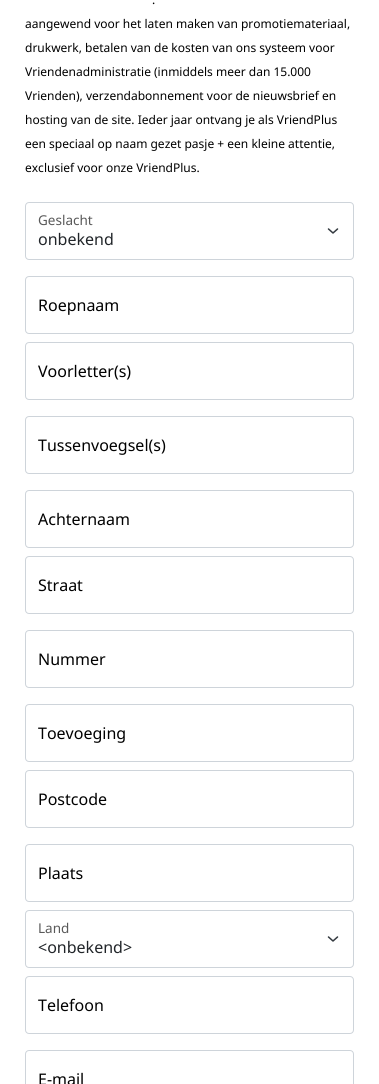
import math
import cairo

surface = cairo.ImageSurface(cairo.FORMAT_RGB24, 379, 1084)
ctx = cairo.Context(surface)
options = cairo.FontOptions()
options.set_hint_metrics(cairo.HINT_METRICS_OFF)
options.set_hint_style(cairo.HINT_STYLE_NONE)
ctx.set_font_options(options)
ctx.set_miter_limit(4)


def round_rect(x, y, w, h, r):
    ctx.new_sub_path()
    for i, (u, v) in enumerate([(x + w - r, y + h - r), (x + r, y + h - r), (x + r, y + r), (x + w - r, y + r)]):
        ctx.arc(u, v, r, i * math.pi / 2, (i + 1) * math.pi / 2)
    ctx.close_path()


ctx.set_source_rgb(1, 1, 1)
ctx.paint()
ctx.select_font_face("Noto Sans")
ctx.set_font_size(12)
ctx.set_source_rgb(0, 0, 0)
ctx.move_to(152, 4)
ctx.show_text(".")
ctx.move_to(25, 28)
ctx.show_text("aangewend voor het laten maken van promotiemateriaal,")
ctx.move_to(25, 52)
ctx.show_text("drukwerk, betalen van de kosten van ons systeem voor")
ctx.move_to(25, 76)
ctx.show_text("Vriendenadministratie (inmiddels meer dan 15.000")
ctx.move_to(25, 100)
ctx.show_text("Vrienden), verzendabonnement voor de nieuwsbrief en")
ctx.move_to(25, 124)
ctx.show_text("hosting van de site. Ieder jaar ontvang je als VriendPlus")
ctx.move_to(25, 148)
ctx.show_text("een speciaal op naam gezet pasje + een kleine attentie,")
ctx.move_to(25, 172)
ctx.show_text("exclusief voor onze VriendPlus.")
ctx.new_path()
ctx.move_to(328.5, 229)
ctx.line_to(333, 233)
ctx.line_to(337.5, 229)
ctx.set_source_rgb(0.204, 0.227, 0.251)
ctx.set_line_width(1.5)
ctx.set_line_cap(cairo.LINE_CAP_ROUND)
ctx.set_line_join(cairo.LINE_JOIN_ROUND)
ctx.stroke()
round_rect(25.5, 202.5, 328, 57, 3.5)
ctx.set_source_rgb(0.808, 0.831, 0.855)
ctx.set_line_width(1)
ctx.set_line_cap(cairo.LINE_CAP_BUTT)
ctx.set_line_join(cairo.LINE_JOIN_MITER)
ctx.stroke()
ctx.set_font_size(13.5)
ctx.set_source_rgb(0.349, 0.349, 0.349)
ctx.move_to(38, 225)
ctx.show_text("Geslacht")
ctx.set_font_size(16)
ctx.set_source_rgb(0.129, 0.145, 0.161)
ctx.move_to(38, 245)
ctx.show_text("onbekend")
round_rect(25.5, 276.5, 328, 57, 3.5)
ctx.set_source_rgb(0.808, 0.831, 0.855)
ctx.stroke()
ctx.set_source_rgb(0, 0, 0)
ctx.move_to(38, 311)
ctx.show_text("Roepnaam")
round_rect(25.5, 342.5, 328, 57, 3.5)
ctx.set_source_rgb(0.808, 0.831, 0.855)
ctx.stroke()
ctx.set_source_rgb(0, 0, 0)
ctx.move_to(38, 377)
ctx.show_text("Voorletter(s)")
round_rect(25.5, 416.5, 328, 57, 3.5)
ctx.set_source_rgb(0.808, 0.831, 0.855)
ctx.stroke()
ctx.set_source_rgb(0, 0, 0)
ctx.move_to(38, 451)
ctx.show_text("Tussenvoegsel(s)")
round_rect(25.5, 490.5, 328, 57, 3.5)
ctx.set_source_rgb(0.808, 0.831, 0.855)
ctx.stroke()
ctx.set_source_rgb(0, 0, 0)
ctx.move_to(38, 525)
ctx.show_text("Achternaam")
round_rect(25.5, 556.5, 328, 57, 3.5)
ctx.set_source_rgb(0.808, 0.831, 0.855)
ctx.stroke()
ctx.set_source_rgb(0, 0, 0)
ctx.move_to(38, 591)
ctx.show_text("Straat")
round_rect(25.5, 630.5, 328, 57, 3.5)
ctx.set_source_rgb(0.808, 0.831, 0.855)
ctx.stroke()
ctx.set_source_rgb(0, 0, 0)
ctx.move_to(38, 665)
ctx.show_text("Nummer")
round_rect(25.5, 704.5, 328, 57, 3.5)
ctx.set_source_rgb(0.808, 0.831, 0.855)
ctx.stroke()
ctx.set_source_rgb(0, 0, 0)
ctx.move_to(38, 739)
ctx.show_text("Toevoeging")
round_rect(25.5, 770.5, 328, 57, 3.5)
ctx.set_source_rgb(0.808, 0.831, 0.855)
ctx.stroke()
ctx.set_source_rgb(0, 0, 0)
ctx.move_to(38, 805)
ctx.show_text("Postcode")
round_rect(25.5, 844.5, 328, 57, 3.5)
ctx.set_source_rgb(0.808, 0.831, 0.855)
ctx.stroke()
ctx.set_source_rgb(0, 0, 0)
ctx.move_to(38, 879)
ctx.show_text("Plaats")
ctx.new_path()
ctx.move_to(328.5, 937)
ctx.line_to(333, 941)
ctx.line_to(337.5, 937)
ctx.set_source_rgb(0.204, 0.227, 0.251)
ctx.set_line_width(1.5)
ctx.set_line_cap(cairo.LINE_CAP_ROUND)
ctx.set_line_join(cairo.LINE_JOIN_ROUND)
ctx.stroke()
round_rect(25.5, 910.5, 328, 57, 3.5)
ctx.set_source_rgb(0.808, 0.831, 0.855)
ctx.set_line_width(1)
ctx.set_line_cap(cairo.LINE_CAP_BUTT)
ctx.set_line_join(cairo.LINE_JOIN_MITER)
ctx.stroke()
ctx.set_font_size(13.5)
ctx.set_source_rgb(0.349, 0.349, 0.349)
ctx.move_to(38, 933)
ctx.show_text("Land")
ctx.set_font_size(16)
ctx.set_source_rgb(0.129, 0.145, 0.161)
ctx.move_to(38, 953)
ctx.show_text("<onbekend>")
round_rect(25.5, 976.5, 328, 57, 3.5)
ctx.set_source_rgb(0.808, 0.831, 0.855)
ctx.stroke()
ctx.set_source_rgb(0, 0, 0)
ctx.move_to(38, 1011)
ctx.show_text("Telefoon")
round_rect(25.5, 1050.5, 328, 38, 3.5)
ctx.set_source_rgb(0.808, 0.831, 0.855)
ctx.stroke()
ctx.set_source_rgb(0, 0, 0)
ctx.move_to(38, 1085)
ctx.show_text("E-mail")
surface.write_to_png("page.png")
